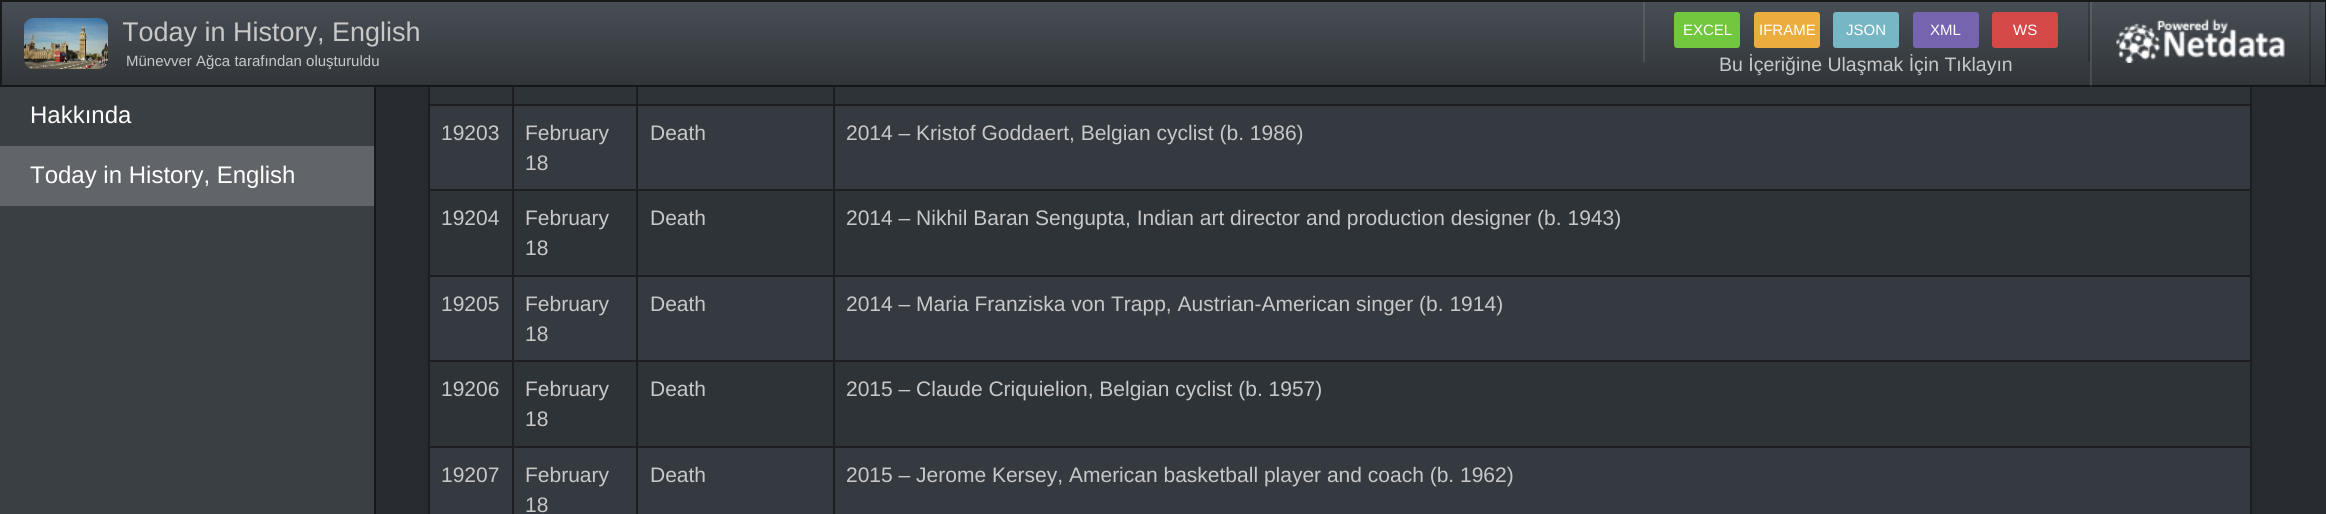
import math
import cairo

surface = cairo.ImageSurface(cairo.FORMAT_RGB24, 2326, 514)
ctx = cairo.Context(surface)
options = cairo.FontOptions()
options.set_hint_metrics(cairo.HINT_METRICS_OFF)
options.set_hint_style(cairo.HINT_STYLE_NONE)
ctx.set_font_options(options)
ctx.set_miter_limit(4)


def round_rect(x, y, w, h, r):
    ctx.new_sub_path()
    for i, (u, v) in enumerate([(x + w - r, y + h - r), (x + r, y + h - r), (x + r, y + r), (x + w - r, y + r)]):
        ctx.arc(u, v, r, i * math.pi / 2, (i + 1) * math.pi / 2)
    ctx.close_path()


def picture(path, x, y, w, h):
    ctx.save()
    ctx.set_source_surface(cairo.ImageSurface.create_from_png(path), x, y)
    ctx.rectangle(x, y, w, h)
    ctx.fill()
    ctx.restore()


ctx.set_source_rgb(0.153, 0.169, 0.188)
ctx.paint()
ctx.set_source_rgb(0.227, 0.247, 0.267)
ctx.rectangle(0, 0, 2326, 87)
ctx.fill()
gradient = cairo.LinearGradient(1163, 1.5, 1163, 86)
gradient.add_color_stop_rgba(0, 0.282, 0.306, 0.333, 1)
gradient.add_color_stop_rgba(0.6, 0.227, 0.247, 0.267, 1)
gradient.add_color_stop_rgba(1, 0.192, 0.208, 0.224, 1)
ctx.set_source(gradient)
ctx.rectangle(2, 2, 2323, 84)
ctx.fill()
gradient = cairo.LinearGradient(1163, 1.5, 1163, 86)
gradient.add_color_stop_rgba(0, 0.353, 0.376, 0.4, 1)
gradient.add_color_stop_rgba(0.6, 0.306, 0.322, 0.341, 1)
gradient.add_color_stop_rgba(1, 0.275, 0.286, 0.302, 1)
ctx.set_source(gradient)
ctx.rectangle(1643, 2, 2, 60)
ctx.fill()
gradient = cairo.LinearGradient(1163, 1.5, 1163, 86)
gradient.add_color_stop_rgba(0, 0.227, 0.243, 0.267, 1)
gradient.add_color_stop_rgba(0.6, 0.18, 0.196, 0.212, 1)
gradient.add_color_stop_rgba(1, 0.153, 0.165, 0.18, 1)
ctx.set_source(gradient)
ctx.rectangle(2088, 2, 2, 60)
ctx.fill()
ctx.rectangle(1, 1, 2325, 85)
ctx.set_source_rgba(0, 0, 0, 0.6)
ctx.stroke()
picture("img1.png", 24, 18, 84, 51)
ctx.save()
ctx.rectangle(123, 18, 1437, 57)
ctx.clip()
ctx.select_font_face("Liberation Sans")
ctx.set_font_size(27)
ctx.set_source_rgb(0.784, 0.784, 0.784)
ctx.move_to(122, 41)
ctx.show_text("Today in History, English")
ctx.restore()
ctx.select_font_face("Liberation Sans")
ctx.set_font_size(15)
ctx.set_source_rgb(0.784, 0.784, 0.784)
ctx.move_to(126, 66)
ctx.show_text("Münevver Ağca tarafından oluşturuldu")
ctx.set_source_rgb(0.443, 0.78, 0.243)
round_rect(1674, 12, 66, 36, 3)
ctx.fill()
ctx.set_source_rgb(1, 1, 1)
ctx.move_to(1683, 35)
ctx.show_text("EXCEL")
ctx.set_source_rgb(0.925, 0.678, 0.247)
round_rect(1754, 12, 66, 36, 3)
ctx.fill()
ctx.set_source_rgb(1, 1, 1)
ctx.move_to(1759, 35)
ctx.show_text("IFRAME")
ctx.set_source_rgb(0.467, 0.718, 0.773)
round_rect(1833, 12, 66, 36, 3)
ctx.fill()
ctx.set_source_rgb(1, 1, 1)
ctx.move_to(1846, 35)
ctx.show_text("JSON")
ctx.set_source_rgb(0.467, 0.392, 0.682)
round_rect(1913, 12, 66, 36, 3)
ctx.fill()
ctx.set_source_rgb(1, 1, 1)
ctx.move_to(1930, 35)
ctx.show_text("XML")
ctx.set_source_rgb(0.835, 0.282, 0.282)
round_rect(1992, 12, 66, 36, 3)
ctx.fill()
ctx.set_source_rgb(1, 1, 1)
ctx.move_to(2013, 35)
ctx.show_text("WS")
ctx.set_font_size(19.5)
ctx.set_source_rgb(0.784, 0.784, 0.784)
ctx.move_to(1719, 71)
ctx.show_text("Bu İçeriğine Ulaşmak İçin Tıklayın")
ctx.set_source_rgba(0, 0, 0, 0.2)
ctx.rectangle(2309, 2, 2, 84)
ctx.fill()
ctx.set_source_rgba(1, 1, 1, 0.1)
ctx.rectangle(2090, 2, 2, 84)
ctx.fill()
picture("img2.png", 2116, 19, 169, 44)
ctx.set_source_rgb(0.227, 0.247, 0.267)
ctx.rectangle(0, 87, 374, 427)
ctx.fill()
ctx.set_source_rgb(0.09, 0.098, 0.106)
ctx.rectangle(374, 87, 2, 427)
ctx.fill()
ctx.set_font_size(24)
ctx.set_source_rgb(1, 1, 1)
ctx.move_to(30, 123)
ctx.show_text("Hakkında")
ctx.set_source_rgb(0.38, 0.396, 0.412)
ctx.rectangle(0, 146, 374, 60)
ctx.fill()
ctx.set_source_rgb(1, 1, 1)
ctx.move_to(30, 183)
ctx.show_text("Today in History, English")
ctx.set_source_rgb(0.18, 0.2, 0.22)
ctx.rectangle(430, 87, 1820, 359)
ctx.fill()
ctx.set_source_rgb(0.11, 0.118, 0.133)
ctx.rectangle(2250, 87, 2, 427)
ctx.fill()
ctx.rectangle(428, 87, 2, 427)
ctx.fill()
ctx.rectangle(833, 104, 1419, 2)
ctx.fill()
ctx.set_source_rgb(0.208, 0.227, 0.255)
ctx.rectangle(430, 106, 1820, 83)
ctx.fill()
ctx.set_source_rgb(0.11, 0.118, 0.133)
ctx.rectangle(833, 189, 1419, 2)
ctx.fill()
ctx.rectangle(833, 275, 1419, 2)
ctx.fill()
ctx.set_source_rgb(0.208, 0.227, 0.255)
ctx.rectangle(430, 277, 1820, 83)
ctx.fill()
ctx.set_source_rgb(0.11, 0.118, 0.133)
ctx.rectangle(833, 360, 1419, 2)
ctx.fill()
ctx.rectangle(833, 446, 1419, 2)
ctx.fill()
ctx.set_source_rgb(0.208, 0.227, 0.255)
ctx.rectangle(430, 448, 1820, 66)
ctx.fill()
ctx.set_source_rgb(0.11, 0.118, 0.133)
ctx.rectangle(833, 446, 2, 68)
ctx.fill()
ctx.rectangle(636, 446, 198, 2)
ctx.fill()
ctx.rectangle(833, 360, 2, 87)
ctx.fill()
ctx.rectangle(636, 360, 198, 2)
ctx.fill()
ctx.rectangle(833, 275, 2, 87)
ctx.fill()
ctx.rectangle(636, 275, 198, 2)
ctx.fill()
ctx.rectangle(833, 189, 2, 87)
ctx.fill()
ctx.rectangle(636, 189, 198, 2)
ctx.fill()
ctx.rectangle(833, 104, 2, 87)
ctx.fill()
ctx.rectangle(636, 104, 198, 2)
ctx.fill()
ctx.rectangle(636, 446, 2, 68)
ctx.fill()
ctx.rectangle(512, 446, 126, 2)
ctx.fill()
ctx.rectangle(636, 360, 2, 87)
ctx.fill()
ctx.rectangle(512, 360, 126, 2)
ctx.fill()
ctx.rectangle(636, 275, 2, 87)
ctx.fill()
ctx.rectangle(512, 275, 126, 2)
ctx.fill()
ctx.rectangle(636, 189, 2, 87)
ctx.fill()
ctx.rectangle(512, 189, 126, 2)
ctx.fill()
ctx.rectangle(636, 104, 2, 87)
ctx.fill()
ctx.rectangle(512, 104, 126, 2)
ctx.fill()
ctx.rectangle(512, 446, 2, 68)
ctx.fill()
ctx.rectangle(428, 446, 85, 2)
ctx.fill()
ctx.rectangle(512, 360, 2, 87)
ctx.fill()
ctx.rectangle(428, 360, 85, 2)
ctx.fill()
ctx.rectangle(512, 275, 2, 87)
ctx.fill()
ctx.rectangle(428, 275, 85, 2)
ctx.fill()
ctx.rectangle(512, 189, 2, 87)
ctx.fill()
ctx.rectangle(428, 189, 85, 2)
ctx.fill()
ctx.rectangle(512, 104, 2, 87)
ctx.fill()
ctx.rectangle(428, 104, 85, 2)
ctx.fill()
ctx.rectangle(512, 87, 2, 18)
ctx.fill()
ctx.rectangle(636, 87, 2, 18)
ctx.fill()
ctx.rectangle(833, 87, 2, 18)
ctx.fill()
ctx.set_font_size(21)
ctx.set_source_rgb(0.784, 0.784, 0.784)
ctx.move_to(441, 140)
ctx.show_text("19203")
ctx.move_to(525, 140)
ctx.show_text("February")
ctx.move_to(525, 170)
ctx.show_text("18")
ctx.move_to(650, 140)
ctx.show_text("Death")
ctx.move_to(846, 140)
ctx.show_text("2014 – Kristof Goddaert, Belgian cyclist (b. 1986)")
ctx.move_to(441, 225)
ctx.show_text("19204")
ctx.move_to(525, 225)
ctx.show_text("February")
ctx.move_to(525, 255)
ctx.show_text("18")
ctx.move_to(650, 225)
ctx.show_text("Death")
ctx.move_to(846, 225)
ctx.show_text("2014 – Nikhil Baran Sengupta, Indian art director and production designer (b. 1943)")
ctx.move_to(441, 311)
ctx.show_text("19205")
ctx.move_to(525, 311)
ctx.show_text("February")
ctx.move_to(525, 341)
ctx.show_text("18")
ctx.move_to(650, 311)
ctx.show_text("Death")
ctx.move_to(846, 311)
ctx.show_text("2014 – Maria Franziska von Trapp, Austrian-American singer (b. 1914)")
ctx.move_to(441, 396)
ctx.show_text("19206")
ctx.move_to(525, 396)
ctx.show_text("February")
ctx.move_to(525, 426)
ctx.show_text("18")
ctx.move_to(650, 396)
ctx.show_text("Death")
ctx.move_to(846, 396)
ctx.show_text("2015 – Claude Criquielion, Belgian cyclist (b. 1957)")
ctx.move_to(441, 482)
ctx.show_text("19207")
ctx.move_to(525, 482)
ctx.show_text("February")
ctx.move_to(525, 512)
ctx.show_text("18")
ctx.move_to(650, 482)
ctx.show_text("Death")
ctx.move_to(846, 482)
ctx.show_text("2015 – Jerome Kersey, American basketball player and coach (b. 1962)")
surface.write_to_png("page.png")
